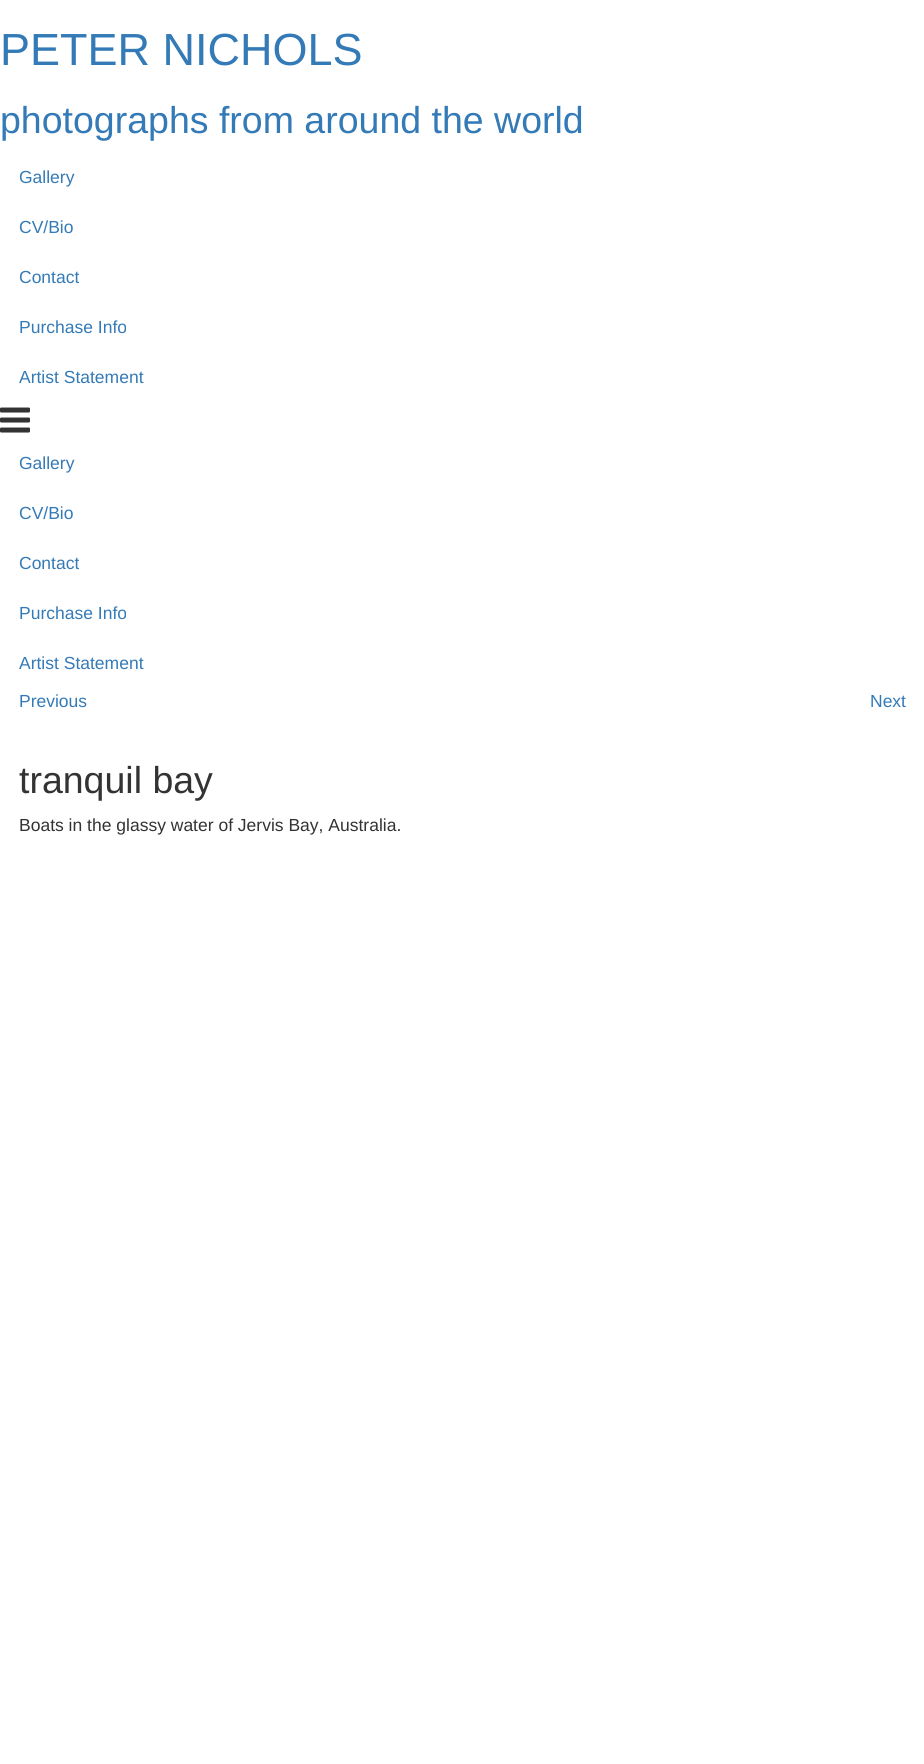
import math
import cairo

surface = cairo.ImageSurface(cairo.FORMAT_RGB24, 924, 1764)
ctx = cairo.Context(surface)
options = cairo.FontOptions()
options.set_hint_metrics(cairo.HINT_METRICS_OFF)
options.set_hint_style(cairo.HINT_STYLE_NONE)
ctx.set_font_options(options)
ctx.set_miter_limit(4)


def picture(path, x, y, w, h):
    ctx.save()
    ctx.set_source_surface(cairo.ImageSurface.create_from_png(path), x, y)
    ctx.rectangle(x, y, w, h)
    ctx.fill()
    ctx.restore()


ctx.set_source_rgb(1, 1, 1)
ctx.paint()
ctx.select_font_face("Liberation Sans")
ctx.set_font_size(45)
ctx.set_source_rgb(0.2, 0.478, 0.718)
ctx.move_to(0, 65)
ctx.show_text("PETER NICHOLS")
ctx.set_font_size(37.5)
ctx.move_to(0, 133)
ctx.show_text("photographs from around the world")
ctx.set_font_size(17.5)
ctx.move_to(19, 183)
ctx.show_text("Gallery")
ctx.move_to(19, 233)
ctx.show_text("CV/Bio")
ctx.move_to(19, 283)
ctx.show_text("Contact")
ctx.move_to(19, 333)
ctx.show_text("Purchase Info")
ctx.move_to(19, 383)
ctx.show_text("Artist Statement")
picture("img1.png", 0, 407, 30, 26)
ctx.move_to(19, 469)
ctx.show_text("Gallery")
ctx.move_to(19, 519)
ctx.show_text("CV/Bio")
ctx.move_to(19, 569)
ctx.show_text("Contact")
ctx.move_to(19, 619)
ctx.show_text("Purchase Info")
ctx.move_to(19, 669)
ctx.show_text("Artist Statement")
ctx.move_to(19, 707)
ctx.show_text("Previous")
ctx.move_to(870, 707)
ctx.show_text("Next")
ctx.set_font_size(37.5)
ctx.set_source_rgb(0.2, 0.2, 0.2)
ctx.move_to(19, 793)
ctx.show_text("tranquil bay")
ctx.set_font_size(17.5)
ctx.move_to(19, 831)
ctx.show_text("Boats in the glassy water of Jervis Bay, Australia.")
surface.write_to_png("page.png")
